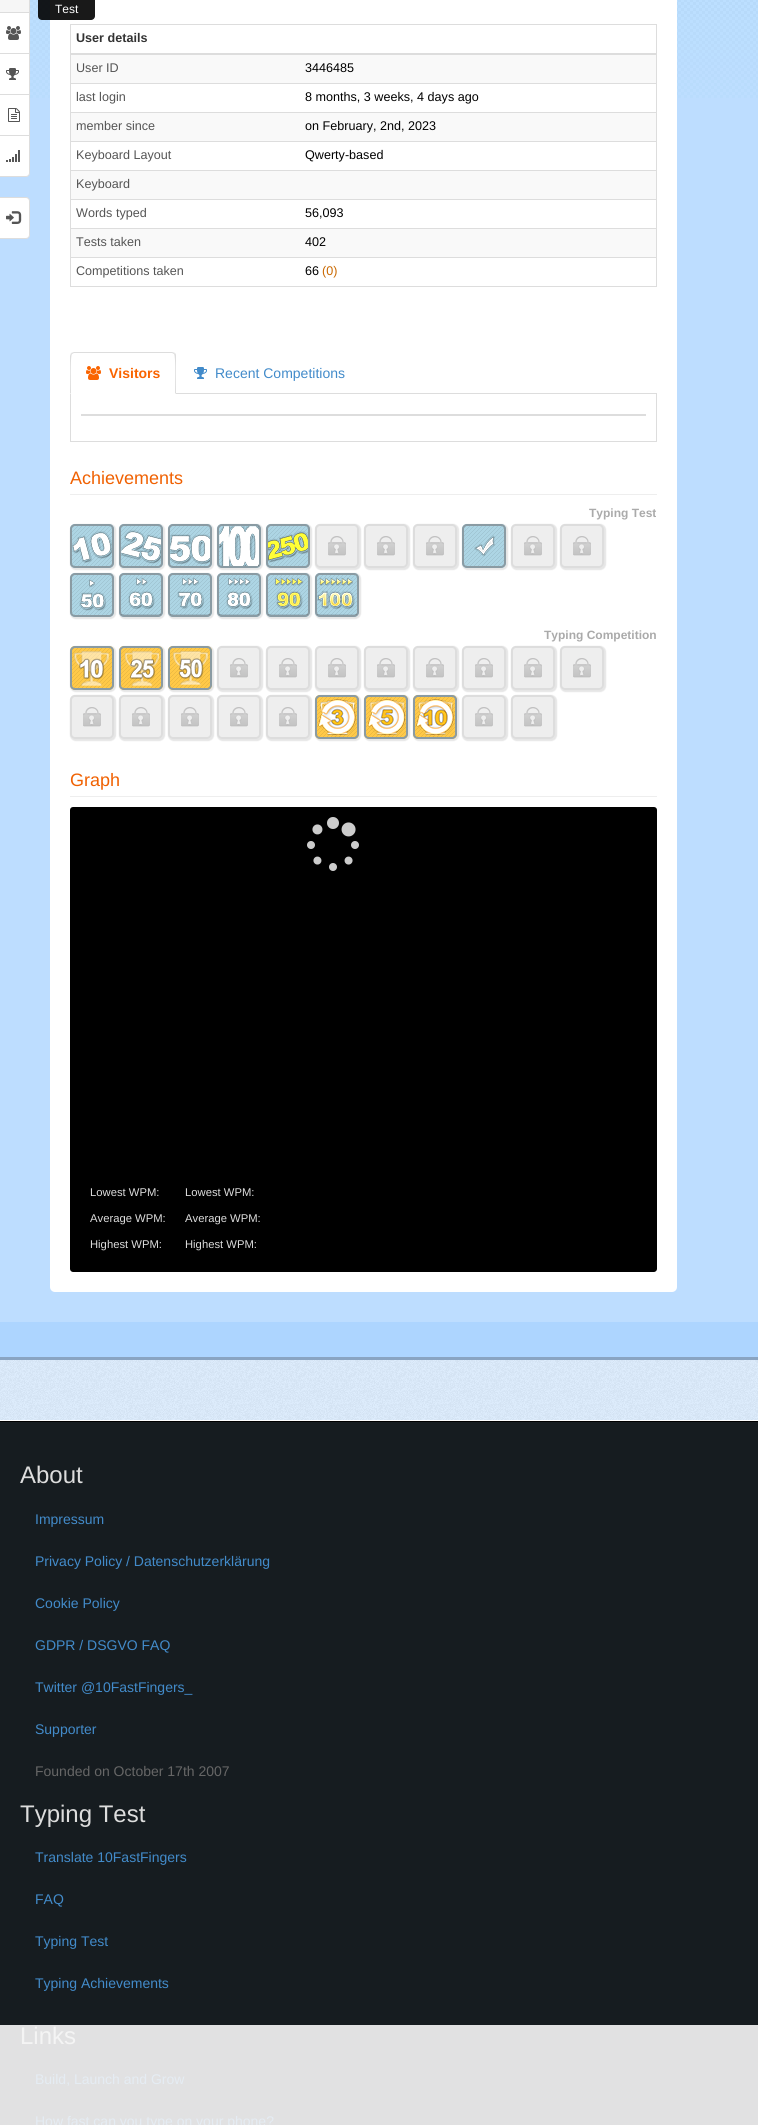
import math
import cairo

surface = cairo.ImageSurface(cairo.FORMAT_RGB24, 758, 2125)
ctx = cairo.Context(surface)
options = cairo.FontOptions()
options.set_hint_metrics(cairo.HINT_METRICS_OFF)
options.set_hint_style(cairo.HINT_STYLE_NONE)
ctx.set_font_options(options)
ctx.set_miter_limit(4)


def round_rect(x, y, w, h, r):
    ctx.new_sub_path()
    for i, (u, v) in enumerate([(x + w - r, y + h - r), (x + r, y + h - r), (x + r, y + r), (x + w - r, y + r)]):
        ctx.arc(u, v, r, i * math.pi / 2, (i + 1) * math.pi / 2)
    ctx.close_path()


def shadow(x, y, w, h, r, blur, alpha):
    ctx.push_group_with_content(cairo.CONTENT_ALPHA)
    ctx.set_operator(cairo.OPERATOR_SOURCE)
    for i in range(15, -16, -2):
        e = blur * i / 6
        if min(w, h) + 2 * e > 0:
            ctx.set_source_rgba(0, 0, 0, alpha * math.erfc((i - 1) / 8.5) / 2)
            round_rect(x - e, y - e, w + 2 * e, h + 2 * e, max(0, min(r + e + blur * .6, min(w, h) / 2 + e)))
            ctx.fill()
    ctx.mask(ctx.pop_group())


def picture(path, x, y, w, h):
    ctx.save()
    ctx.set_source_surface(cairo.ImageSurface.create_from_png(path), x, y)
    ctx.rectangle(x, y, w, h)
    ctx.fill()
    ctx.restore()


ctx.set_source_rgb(0.678, 0.835, 1)
ctx.paint()
ctx.set_source_rgb(0.741, 0.867, 1)
ctx.rectangle(0, 98, 758, 1224)
ctx.fill()
picture("img1.png", 30, 0, 728, 98)
ctx.set_source_rgb(0.961, 0.961, 0.961)
ctx.rectangle(-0.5, -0.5, 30, 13)
ctx.fill_preserve()
ctx.set_source_rgb(0.867, 0.867, 0.867)
ctx.set_line_width(1)
ctx.stroke()
ctx.set_source_rgb(1, 1, 1)
round_rect(50, -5, 627, 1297, 5)
ctx.fill()
ctx.set_source_rgba(0, 0, 0, 0.9)
round_rect(38, -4, 57, 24, 4)
ctx.fill()
ctx.select_font_face("Liberation Sans")
ctx.set_font_size(12)
ctx.set_source_rgb(1, 1, 1)
ctx.move_to(55, 13)
ctx.show_text("Test")
ctx.rectangle(-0.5, 12.5, 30, 41)
ctx.fill_preserve()
ctx.set_source_rgb(0.867, 0.867, 0.867)
ctx.stroke()
picture("img2.png", 6, 26, 15, 14)
ctx.set_source_rgb(1, 1, 1)
ctx.rectangle(-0.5, 53.5, 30, 41)
ctx.fill_preserve()
ctx.set_source_rgb(0.867, 0.867, 0.867)
ctx.stroke()
picture("img3.png", 6, 68, 13, 12)
ctx.set_source_rgb(1, 1, 1)
ctx.rectangle(-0.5, 94.5, 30, 41)
ctx.fill_preserve()
ctx.set_source_rgb(0.867, 0.867, 0.867)
ctx.stroke()
picture("img4.png", 8, 108, 12, 14)
ctx.set_source_rgb(1, 1, 1)
ctx.new_path()
ctx.move_to(-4.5, 135.5)
ctx.line_to(29.5, 135.5)
ctx.line_to(29.5, 173)
ctx.curve_to(29.5, 175, 28, 176.5, 26, 176.5)
ctx.line_to(-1, 176.5)
ctx.curve_to(-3, 176.5, -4.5, 175, -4.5, 173)
ctx.close_path()
ctx.fill_preserve()
ctx.set_source_rgb(0.867, 0.867, 0.867)
ctx.stroke()
picture("img5.png", 6, 150, 14, 12)
ctx.set_source_rgb(1, 1, 1)
round_rect(-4.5, 197.5, 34, 41, 3.5)
ctx.fill_preserve()
ctx.set_source_rgb(0.867, 0.867, 0.867)
ctx.stroke()
picture("img6.png", 6, 211, 16, 13)
ctx.rectangle(70.5, 24.5, 586, 262)
ctx.stroke()
ctx.rectangle(71, 53, 585, 2)
ctx.fill()
ctx.select_font_face("Liberation Sans", cairo.FONT_SLANT_NORMAL, cairo.FONT_WEIGHT_BOLD)
ctx.set_font_size(12.6)
ctx.set_source_rgb(0.2, 0.2, 0.2)
ctx.move_to(76, 42)
ctx.show_text("User details")
ctx.set_source_rgb(0.976, 0.976, 0.976)
ctx.rectangle(71, 55, 585, 28)
ctx.fill()
ctx.select_font_face("Liberation Sans")
ctx.set_source_rgb(0.333, 0.333, 0.333)
ctx.move_to(76, 72)
ctx.show_text("User ID")
ctx.set_source_rgb(0, 0, 0)
ctx.move_to(305, 72)
ctx.show_text("3446485")
ctx.set_source_rgb(0.333, 0.333, 0.333)
ctx.move_to(76, 101)
ctx.show_text("last login")
ctx.set_source_rgb(0.867, 0.867, 0.867)
ctx.rectangle(71, 83, 585, 1)
ctx.fill()
ctx.set_source_rgb(0, 0, 0)
ctx.move_to(305, 101)
ctx.show_text("8 months, 3 weeks, 4 days ago")
ctx.set_source_rgb(0.976, 0.976, 0.976)
ctx.rectangle(71, 113, 585, 28)
ctx.fill()
ctx.set_source_rgb(0.333, 0.333, 0.333)
ctx.move_to(76, 130)
ctx.show_text("member since")
ctx.set_source_rgb(0.867, 0.867, 0.867)
ctx.rectangle(71, 112, 585, 1)
ctx.fill()
ctx.set_source_rgb(0, 0, 0)
ctx.move_to(305, 130)
ctx.show_text("on February, 2nd, 2023")
ctx.set_source_rgb(0.333, 0.333, 0.333)
ctx.move_to(76, 159)
ctx.show_text("Keyboard Layout")
ctx.set_source_rgb(0.867, 0.867, 0.867)
ctx.rectangle(71, 141, 585, 1)
ctx.fill()
ctx.set_source_rgb(0, 0, 0)
ctx.move_to(305, 159)
ctx.show_text("Qwerty-based")
ctx.set_source_rgb(0.867, 0.867, 0.867)
ctx.rectangle(71, 170, 585, 1)
ctx.fill()
ctx.set_source_rgb(0.976, 0.976, 0.976)
ctx.rectangle(71, 171, 585, 28)
ctx.fill()
ctx.set_source_rgb(0.333, 0.333, 0.333)
ctx.move_to(76, 188)
ctx.show_text("Keyboard")
ctx.move_to(76, 217)
ctx.show_text("Words typed")
ctx.set_source_rgb(0.867, 0.867, 0.867)
ctx.rectangle(71, 199, 585, 1)
ctx.fill()
ctx.set_source_rgb(0, 0, 0)
ctx.move_to(305, 217)
ctx.show_text("56,093")
ctx.set_source_rgb(0.976, 0.976, 0.976)
ctx.rectangle(71, 229, 585, 28)
ctx.fill()
ctx.set_source_rgb(0.333, 0.333, 0.333)
ctx.move_to(76, 246)
ctx.show_text("Tests taken")
ctx.set_source_rgb(0.867, 0.867, 0.867)
ctx.rectangle(71, 228, 585, 1)
ctx.fill()
ctx.set_source_rgb(0, 0, 0)
ctx.move_to(305, 246)
ctx.show_text("402")
ctx.set_source_rgb(0.333, 0.333, 0.333)
ctx.move_to(76, 275)
ctx.show_text("Competitions taken")
ctx.set_source_rgb(0.867, 0.867, 0.867)
ctx.rectangle(71, 257, 585, 1)
ctx.fill()
ctx.set_source_rgb(0, 0, 0)
ctx.move_to(305, 275)
ctx.show_text("66")
ctx.set_source_rgb(0.788, 0.408, 0)
ctx.move_to(322, 275)
ctx.show_text("(0)")
ctx.set_source_rgb(0.867, 0.867, 0.867)
ctx.rectangle(176, 393, 481, 1)
ctx.fill()
ctx.new_path()
ctx.move_to(74, 352)
ctx.line_to(71, 353)
ctx.line_to(72, 354)
ctx.line_to(74, 353)
ctx.line_to(172, 353)
ctx.line_to(174, 354)
ctx.line_to(175, 353)
ctx.line_to(172, 352)
ctx.close_path()
ctx.fill()
ctx.new_path()
ctx.move_to(176, 394)
ctx.line_to(176, 356)
ctx.curve_to(176, 355, 176, 354, 175, 353)
ctx.line_to(174, 354)
ctx.curve_to(176, 356, 175, 388, 175, 393)
ctx.close_path()
ctx.fill()
ctx.new_path()
ctx.move_to(70, 394)
ctx.line_to(71, 393)
ctx.curve_to(71, 388, 70, 356, 72, 354)
ctx.line_to(71, 353)
ctx.line_to(70, 356)
ctx.close_path()
ctx.fill()
picture("img7.png", 86, 366, 15, 14)
ctx.select_font_face("Liberation Sans", cairo.FONT_SLANT_NORMAL, cairo.FONT_WEIGHT_BOLD)
ctx.set_font_size(14)
ctx.set_source_rgb(0.98, 0.392, 0)
ctx.move_to(109, 378)
ctx.show_text("Visitors")
picture("img8.png", 194, 367, 13, 12)
ctx.select_font_face("Liberation Sans")
ctx.set_source_rgb(0.259, 0.545, 0.792)
ctx.move_to(215, 378)
ctx.show_text("Recent Competitions")
ctx.set_source_rgb(0.867, 0.867, 0.867)
ctx.rectangle(656, 394, 1, 48)
ctx.fill()
ctx.rectangle(70, 441, 587, 1)
ctx.fill()
ctx.rectangle(70, 394, 1, 48)
ctx.fill()
ctx.rectangle(81, 414, 565, 2)
ctx.fill()
ctx.set_source_rgb(0.933, 0.933, 0.933)
ctx.rectangle(70, 494, 587, 1)
ctx.fill()
ctx.set_font_size(18)
ctx.set_source_rgb(0.941, 0.38, 0.008)
ctx.move_to(70, 484)
ctx.show_text("Achievements")
ctx.select_font_face("Liberation Sans", cairo.FONT_SLANT_NORMAL, cairo.FONT_WEIGHT_BOLD)
ctx.set_font_size(12)
ctx.set_source_rgb(0.667, 0.667, 0.667)
ctx.move_to(589, 517)
ctx.show_text("Typing Test")
ctx.set_source_rgb(0, 0, 0)
shadow(70, 524, 46, 46, 6, 0.5, 0.1)
ctx.set_source_rgb(0.678, 0.835, 0.894)
round_rect(70, 524, 44, 44, 5)
ctx.fill()
picture("img9.png", 72, 526, 40, 40)
round_rect(71, 525, 42, 42, 4)
ctx.set_source_rgb(0.541, 0.608, 0.639)
ctx.set_line_width(2)
ctx.stroke()
picture("img10.png", 72, 531, 40, 32)
ctx.set_source_rgb(0, 0, 0)
shadow(119, 524, 46, 46, 6, 0.5, 0.1)
ctx.set_source_rgb(0.678, 0.835, 0.894)
round_rect(119, 524, 44, 44, 5)
ctx.fill()
picture("img9.png", 121, 526, 40, 40)
round_rect(120, 525, 42, 42, 4)
ctx.set_source_rgb(0.541, 0.608, 0.639)
ctx.stroke()
picture("img11.png", 121, 530, 40, 34)
ctx.set_source_rgb(0, 0, 0)
shadow(168, 524, 46, 46, 6, 0.5, 0.1)
ctx.set_source_rgb(0.678, 0.835, 0.894)
round_rect(168, 524, 44, 44, 5)
ctx.fill()
picture("img9.png", 170, 526, 40, 40)
round_rect(169, 525, 42, 42, 4)
ctx.set_source_rgb(0.541, 0.608, 0.639)
ctx.stroke()
picture("img12.png", 170, 534, 40, 30)
ctx.set_source_rgb(0, 0, 0)
shadow(217, 524, 46, 46, 6, 0.5, 0.1)
ctx.set_source_rgb(0.678, 0.835, 0.894)
round_rect(217, 524, 44, 44, 5)
ctx.fill()
picture("img9.png", 219, 526, 40, 40)
round_rect(218, 525, 42, 42, 4)
ctx.set_source_rgb(0.541, 0.608, 0.639)
ctx.stroke()
picture("img13.png", 219, 526, 40, 40)
ctx.set_source_rgb(0, 0, 0)
shadow(266, 524, 46, 46, 6, 0.5, 0.1)
ctx.set_source_rgb(0.678, 0.835, 0.894)
round_rect(266, 524, 44, 44, 5)
ctx.fill()
picture("img9.png", 268, 526, 40, 40)
round_rect(267, 525, 42, 42, 4)
ctx.set_source_rgb(0.541, 0.608, 0.639)
ctx.stroke()
picture("img14.png", 268, 531, 40, 32)
ctx.set_source_rgb(0, 0, 0)
shadow(315, 524, 46, 46, 6, 0.5, 0.1)
ctx.set_source_rgb(0.933, 0.933, 0.933)
round_rect(315, 524, 44, 44, 5)
ctx.fill()
picture("img15.png", 328, 536, 18, 20)
round_rect(316, 525, 42, 42, 4)
ctx.set_source_rgb(0.867, 0.867, 0.867)
ctx.stroke()
ctx.set_source_rgb(0, 0, 0)
shadow(364, 524, 46, 46, 6, 0.5, 0.1)
ctx.set_source_rgb(0.933, 0.933, 0.933)
round_rect(364, 524, 44, 44, 5)
ctx.fill()
picture("img15.png", 377, 536, 18, 20)
round_rect(365, 525, 42, 42, 4)
ctx.set_source_rgb(0.867, 0.867, 0.867)
ctx.stroke()
ctx.set_source_rgb(0, 0, 0)
shadow(413, 524, 46, 46, 6, 0.5, 0.1)
ctx.set_source_rgb(0.933, 0.933, 0.933)
round_rect(413, 524, 44, 44, 5)
ctx.fill()
picture("img15.png", 426, 536, 18, 20)
round_rect(414, 525, 42, 42, 4)
ctx.set_source_rgb(0.867, 0.867, 0.867)
ctx.stroke()
ctx.set_source_rgb(0, 0, 0)
shadow(462, 524, 46, 46, 6, 0.5, 0.1)
ctx.set_source_rgb(0.678, 0.835, 0.894)
round_rect(462, 524, 44, 44, 5)
ctx.fill()
picture("img9.png", 464, 526, 40, 40)
round_rect(463, 525, 42, 42, 4)
ctx.set_source_rgb(0.541, 0.608, 0.639)
ctx.stroke()
picture("img16.png", 474, 535, 21, 22)
ctx.set_source_rgb(0, 0, 0)
shadow(511, 524, 46, 46, 6, 0.5, 0.1)
ctx.set_source_rgb(0.933, 0.933, 0.933)
round_rect(511, 524, 44, 44, 5)
ctx.fill()
picture("img15.png", 524, 536, 18, 20)
round_rect(512, 525, 42, 42, 4)
ctx.set_source_rgb(0.867, 0.867, 0.867)
ctx.stroke()
ctx.set_source_rgb(0, 0, 0)
shadow(560, 524, 46, 46, 6, 0.5, 0.1)
ctx.set_source_rgb(0.933, 0.933, 0.933)
round_rect(560, 524, 44, 44, 5)
ctx.fill()
picture("img15.png", 573, 536, 18, 20)
round_rect(561, 525, 42, 42, 4)
ctx.set_source_rgb(0.867, 0.867, 0.867)
ctx.stroke()
ctx.set_source_rgb(0, 0, 0)
shadow(70, 573, 46, 46, 6, 0.5, 0.1)
ctx.set_source_rgb(0.678, 0.835, 0.894)
round_rect(70, 573, 44, 44, 5)
ctx.fill()
picture("img9.png", 72, 575, 40, 40)
round_rect(71, 574, 42, 42, 4)
ctx.set_source_rgb(0.541, 0.608, 0.639)
ctx.stroke()
picture("img17.png", 79, 579, 27, 32)
ctx.set_source_rgb(0, 0, 0)
shadow(119, 573, 46, 46, 6, 0.5, 0.1)
ctx.set_source_rgb(0.678, 0.835, 0.894)
round_rect(119, 573, 44, 44, 5)
ctx.fill()
picture("img9.png", 121, 575, 40, 40)
round_rect(120, 574, 42, 42, 4)
ctx.set_source_rgb(0.541, 0.608, 0.639)
ctx.stroke()
picture("img18.png", 121, 577, 40, 38)
ctx.set_source_rgb(0, 0, 0)
shadow(168, 573, 46, 46, 6, 0.5, 0.1)
ctx.set_source_rgb(0.678, 0.835, 0.894)
round_rect(168, 573, 44, 44, 5)
ctx.fill()
picture("img9.png", 170, 575, 40, 40)
round_rect(169, 574, 42, 42, 4)
ctx.set_source_rgb(0.541, 0.608, 0.639)
ctx.stroke()
picture("img19.png", 170, 577, 40, 38)
ctx.set_source_rgb(0, 0, 0)
shadow(217, 573, 46, 46, 6, 0.5, 0.1)
ctx.set_source_rgb(0.678, 0.835, 0.894)
round_rect(217, 573, 44, 44, 5)
ctx.fill()
picture("img9.png", 219, 575, 40, 40)
round_rect(218, 574, 42, 42, 4)
ctx.set_source_rgb(0.541, 0.608, 0.639)
ctx.stroke()
picture("img20.png", 219, 577, 40, 38)
ctx.set_source_rgb(0, 0, 0)
shadow(266, 573, 46, 46, 6, 0.5, 0.1)
ctx.set_source_rgb(0.678, 0.835, 0.894)
round_rect(266, 573, 44, 44, 5)
ctx.fill()
picture("img9.png", 268, 575, 40, 40)
round_rect(267, 574, 42, 42, 4)
ctx.set_source_rgb(0.541, 0.608, 0.639)
ctx.stroke()
picture("img21.png", 268, 577, 40, 38)
ctx.set_source_rgb(0, 0, 0)
shadow(315, 573, 46, 46, 6, 0.5, 0.1)
ctx.set_source_rgb(0.678, 0.835, 0.894)
round_rect(315, 573, 44, 44, 5)
ctx.fill()
picture("img9.png", 317, 575, 40, 40)
round_rect(316, 574, 42, 42, 4)
ctx.set_source_rgb(0.541, 0.608, 0.639)
ctx.stroke()
picture("img22.png", 317, 577, 40, 38)
ctx.set_source_rgb(0.667, 0.667, 0.667)
ctx.move_to(544, 639)
ctx.show_text("Typing Competition")
ctx.set_source_rgb(0, 0, 0)
shadow(70, 646, 46, 46, 6, 0.5, 0.1)
ctx.set_source_rgb(1, 0.788, 0.282)
round_rect(70, 646, 44, 44, 5)
ctx.fill()
picture("img23.png", 72, 648, 40, 40)
round_rect(71, 647, 42, 42, 4)
ctx.set_source_rgb(0.541, 0.608, 0.639)
ctx.stroke()
picture("img24.png", 74, 651, 35, 35)
ctx.set_source_rgb(0, 0, 0)
shadow(119, 646, 46, 46, 6, 0.5, 0.1)
ctx.set_source_rgb(1, 0.788, 0.282)
round_rect(119, 646, 44, 44, 5)
ctx.fill()
picture("img23.png", 121, 648, 40, 40)
round_rect(120, 647, 42, 42, 4)
ctx.set_source_rgb(0.541, 0.608, 0.639)
ctx.stroke()
picture("img25.png", 125, 651, 34, 35)
ctx.set_source_rgb(0, 0, 0)
shadow(168, 646, 46, 46, 6, 0.5, 0.1)
ctx.set_source_rgb(1, 0.788, 0.282)
round_rect(168, 646, 44, 44, 5)
ctx.fill()
picture("img23.png", 170, 648, 40, 40)
round_rect(169, 647, 42, 42, 4)
ctx.set_source_rgb(0.541, 0.608, 0.639)
ctx.stroke()
picture("img26.png", 173, 651, 35, 34)
ctx.set_source_rgb(0, 0, 0)
shadow(217, 646, 46, 46, 6, 0.5, 0.1)
ctx.set_source_rgb(0.933, 0.933, 0.933)
round_rect(217, 646, 44, 44, 5)
ctx.fill()
picture("img15.png", 230, 658, 18, 20)
round_rect(218, 647, 42, 42, 4)
ctx.set_source_rgb(0.867, 0.867, 0.867)
ctx.stroke()
ctx.set_source_rgb(0, 0, 0)
shadow(266, 646, 46, 46, 6, 0.5, 0.1)
ctx.set_source_rgb(0.933, 0.933, 0.933)
round_rect(266, 646, 44, 44, 5)
ctx.fill()
picture("img15.png", 279, 658, 18, 20)
round_rect(267, 647, 42, 42, 4)
ctx.set_source_rgb(0.867, 0.867, 0.867)
ctx.stroke()
ctx.set_source_rgb(0, 0, 0)
shadow(315, 646, 46, 46, 6, 0.5, 0.1)
ctx.set_source_rgb(0.933, 0.933, 0.933)
round_rect(315, 646, 44, 44, 5)
ctx.fill()
picture("img15.png", 328, 658, 18, 20)
round_rect(316, 647, 42, 42, 4)
ctx.set_source_rgb(0.867, 0.867, 0.867)
ctx.stroke()
ctx.set_source_rgb(0, 0, 0)
shadow(364, 646, 46, 46, 6, 0.5, 0.1)
ctx.set_source_rgb(0.933, 0.933, 0.933)
round_rect(364, 646, 44, 44, 5)
ctx.fill()
picture("img15.png", 377, 658, 18, 20)
round_rect(365, 647, 42, 42, 4)
ctx.set_source_rgb(0.867, 0.867, 0.867)
ctx.stroke()
ctx.set_source_rgb(0, 0, 0)
shadow(413, 646, 46, 46, 6, 0.5, 0.1)
ctx.set_source_rgb(0.933, 0.933, 0.933)
round_rect(413, 646, 44, 44, 5)
ctx.fill()
picture("img15.png", 426, 658, 18, 20)
round_rect(414, 647, 42, 42, 4)
ctx.set_source_rgb(0.867, 0.867, 0.867)
ctx.stroke()
ctx.set_source_rgb(0, 0, 0)
shadow(462, 646, 46, 46, 6, 0.5, 0.1)
ctx.set_source_rgb(0.933, 0.933, 0.933)
round_rect(462, 646, 44, 44, 5)
ctx.fill()
picture("img15.png", 475, 658, 18, 20)
round_rect(463, 647, 42, 42, 4)
ctx.set_source_rgb(0.867, 0.867, 0.867)
ctx.stroke()
ctx.set_source_rgb(0, 0, 0)
shadow(511, 646, 46, 46, 6, 0.5, 0.1)
ctx.set_source_rgb(0.933, 0.933, 0.933)
round_rect(511, 646, 44, 44, 5)
ctx.fill()
picture("img15.png", 524, 658, 18, 20)
round_rect(512, 647, 42, 42, 4)
ctx.set_source_rgb(0.867, 0.867, 0.867)
ctx.stroke()
ctx.set_source_rgb(0, 0, 0)
shadow(560, 646, 46, 46, 6, 0.5, 0.1)
ctx.set_source_rgb(0.933, 0.933, 0.933)
round_rect(560, 646, 44, 44, 5)
ctx.fill()
picture("img15.png", 573, 658, 18, 20)
round_rect(561, 647, 42, 42, 4)
ctx.set_source_rgb(0.867, 0.867, 0.867)
ctx.stroke()
ctx.set_source_rgb(0, 0, 0)
shadow(70, 695, 46, 46, 6, 0.5, 0.1)
ctx.set_source_rgb(0.933, 0.933, 0.933)
round_rect(70, 695, 44, 44, 5)
ctx.fill()
picture("img15.png", 83, 707, 18, 20)
round_rect(71, 696, 42, 42, 4)
ctx.set_source_rgb(0.867, 0.867, 0.867)
ctx.stroke()
ctx.set_source_rgb(0, 0, 0)
shadow(119, 695, 46, 46, 6, 0.5, 0.1)
ctx.set_source_rgb(0.933, 0.933, 0.933)
round_rect(119, 695, 44, 44, 5)
ctx.fill()
picture("img15.png", 132, 707, 18, 20)
round_rect(120, 696, 42, 42, 4)
ctx.set_source_rgb(0.867, 0.867, 0.867)
ctx.stroke()
ctx.set_source_rgb(0, 0, 0)
shadow(168, 695, 46, 46, 6, 0.5, 0.1)
ctx.set_source_rgb(0.933, 0.933, 0.933)
round_rect(168, 695, 44, 44, 5)
ctx.fill()
picture("img15.png", 181, 707, 18, 20)
round_rect(169, 696, 42, 42, 4)
ctx.set_source_rgb(0.867, 0.867, 0.867)
ctx.stroke()
ctx.set_source_rgb(0, 0, 0)
shadow(217, 695, 46, 46, 6, 0.5, 0.1)
ctx.set_source_rgb(0.933, 0.933, 0.933)
round_rect(217, 695, 44, 44, 5)
ctx.fill()
picture("img15.png", 230, 707, 18, 20)
round_rect(218, 696, 42, 42, 4)
ctx.set_source_rgb(0.867, 0.867, 0.867)
ctx.stroke()
ctx.set_source_rgb(0, 0, 0)
shadow(266, 695, 46, 46, 6, 0.5, 0.1)
ctx.set_source_rgb(0.933, 0.933, 0.933)
round_rect(266, 695, 44, 44, 5)
ctx.fill()
picture("img15.png", 279, 707, 18, 20)
round_rect(267, 696, 42, 42, 4)
ctx.set_source_rgb(0.867, 0.867, 0.867)
ctx.stroke()
ctx.set_source_rgb(0, 0, 0)
shadow(315, 695, 46, 46, 6, 0.5, 0.1)
ctx.set_source_rgb(1, 0.788, 0.282)
round_rect(315, 695, 44, 44, 5)
ctx.fill()
picture("img23.png", 317, 697, 40, 40)
round_rect(316, 696, 42, 42, 4)
ctx.set_source_rgb(0.541, 0.608, 0.639)
ctx.stroke()
picture("img27.png", 318, 699, 39, 38)
ctx.set_source_rgb(0, 0, 0)
shadow(364, 695, 46, 46, 6, 0.5, 0.1)
ctx.set_source_rgb(1, 0.788, 0.282)
round_rect(364, 695, 44, 44, 5)
ctx.fill()
picture("img23.png", 366, 697, 40, 40)
round_rect(365, 696, 42, 42, 4)
ctx.set_source_rgb(0.541, 0.608, 0.639)
ctx.stroke()
picture("img28.png", 368, 699, 38, 38)
ctx.set_source_rgb(0, 0, 0)
shadow(413, 695, 46, 46, 6, 0.5, 0.1)
ctx.set_source_rgb(1, 0.788, 0.282)
round_rect(413, 695, 44, 44, 5)
ctx.fill()
picture("img23.png", 415, 697, 40, 40)
round_rect(414, 696, 42, 42, 4)
ctx.set_source_rgb(0.541, 0.608, 0.639)
ctx.stroke()
picture("img29.png", 416, 699, 39, 38)
ctx.set_source_rgb(0, 0, 0)
shadow(462, 695, 46, 46, 6, 0.5, 0.1)
ctx.set_source_rgb(0.933, 0.933, 0.933)
round_rect(462, 695, 44, 44, 5)
ctx.fill()
picture("img15.png", 475, 707, 18, 20)
round_rect(463, 696, 42, 42, 4)
ctx.set_source_rgb(0.867, 0.867, 0.867)
ctx.stroke()
ctx.set_source_rgb(0, 0, 0)
shadow(511, 695, 46, 46, 6, 0.5, 0.1)
ctx.set_source_rgb(0.933, 0.933, 0.933)
round_rect(511, 695, 44, 44, 5)
ctx.fill()
picture("img15.png", 524, 707, 18, 20)
round_rect(512, 696, 42, 42, 4)
ctx.set_source_rgb(0.867, 0.867, 0.867)
ctx.stroke()
ctx.set_source_rgb(0.933, 0.933, 0.933)
ctx.rectangle(70, 796, 587, 1)
ctx.fill()
ctx.select_font_face("Liberation Sans")
ctx.set_font_size(18)
ctx.set_source_rgb(0.941, 0.38, 0.008)
ctx.move_to(70, 786)
ctx.show_text("Graph")
ctx.set_source_rgb(0, 0, 0)
round_rect(70, 807, 587, 15, 3)
ctx.fill()
ctx.rectangle(70, 819, 587, 360)
ctx.fill()
picture("img30.png", 307, 817, 52, 54)
ctx.new_path()
ctx.move_to(70, 1179)
ctx.line_to(657, 1179)
ctx.line_to(657, 1269)
ctx.curve_to(657, 1270.5, 655.5, 1272, 654, 1272)
ctx.line_to(73, 1272)
ctx.curve_to(71.5, 1272, 70, 1270.5, 70, 1269)
ctx.close_path()
ctx.fill()
ctx.set_font_size(11.25)
ctx.set_source_rgb(0.867, 0.867, 0.867)
ctx.move_to(90, 1196)
ctx.show_text("Lowest WPM:")
ctx.move_to(90, 1222)
ctx.show_text("Average WPM:")
ctx.move_to(90, 1248)
ctx.show_text("Highest WPM:")
ctx.move_to(185, 1196)
ctx.show_text("Lowest WPM:")
ctx.move_to(185, 1222)
ctx.show_text("Average WPM:")
ctx.move_to(185, 1248)
ctx.show_text("Highest WPM:")
ctx.set_source_rgb(0.537, 0.643, 0.761)
ctx.rectangle(0, 1357, 758, 3)
ctx.fill()
picture("img31.png", 0, 1360, 758, 60)
ctx.set_source_rgb(1, 1, 1)
ctx.rectangle(0, 1420, 758, 1)
ctx.fill()
ctx.set_source_rgb(0.086, 0.11, 0.125)
ctx.rectangle(0, 1422, 758, 603)
ctx.fill()
ctx.set_source_rgb(0.882, 0.882, 0.886)
ctx.rectangle(0, 2025, 758, 100)
ctx.fill()
ctx.set_source_rgb(0, 0, 0)
ctx.rectangle(0, 1421, 758, 1)
ctx.fill()
ctx.set_font_size(24)
ctx.set_source_rgb(0.867, 0.867, 0.867)
ctx.move_to(20, 1483)
ctx.show_text("About")
ctx.set_font_size(14)
ctx.set_source_rgb(0.259, 0.545, 0.792)
ctx.move_to(35, 1524)
ctx.show_text("Impressum")
ctx.move_to(35, 1566)
ctx.show_text("Privacy Policy / Datenschutzerklärung")
ctx.move_to(35, 1608)
ctx.show_text("Cookie Policy")
ctx.move_to(35, 1650)
ctx.show_text("GDPR / DSGVO FAQ")
ctx.move_to(35, 1692)
ctx.show_text("Twitter @10FastFingers_")
ctx.move_to(35, 1734)
ctx.show_text("Supporter")
ctx.set_source_rgb(0.4, 0.4, 0.4)
ctx.move_to(35, 1776)
ctx.show_text("Founded on October 17th 2007")
ctx.set_font_size(24)
ctx.set_source_rgb(0.867, 0.867, 0.867)
ctx.move_to(20, 1822)
ctx.show_text("Typing Test")
ctx.set_font_size(14)
ctx.set_source_rgb(0.259, 0.545, 0.792)
ctx.move_to(35, 1862)
ctx.show_text("Translate 10FastFingers")
ctx.move_to(35, 1904)
ctx.show_text("FAQ")
ctx.move_to(35, 1946)
ctx.show_text("Typing Test")
ctx.move_to(35, 1988)
ctx.show_text("Typing Achievements")
ctx.set_font_size(24)
ctx.set_source_rgb(0.957, 0.957, 0.957)
ctx.move_to(20, 2044)
ctx.show_text("Links")
ctx.set_font_size(14)
ctx.set_source_rgb(0.898, 0.925, 0.953)
ctx.move_to(35, 2084)
ctx.show_text("Build, Launch and Grow")
ctx.move_to(35, 2126)
ctx.show_text("How fast can you type on your phone?")
surface.write_to_png("page.png")
